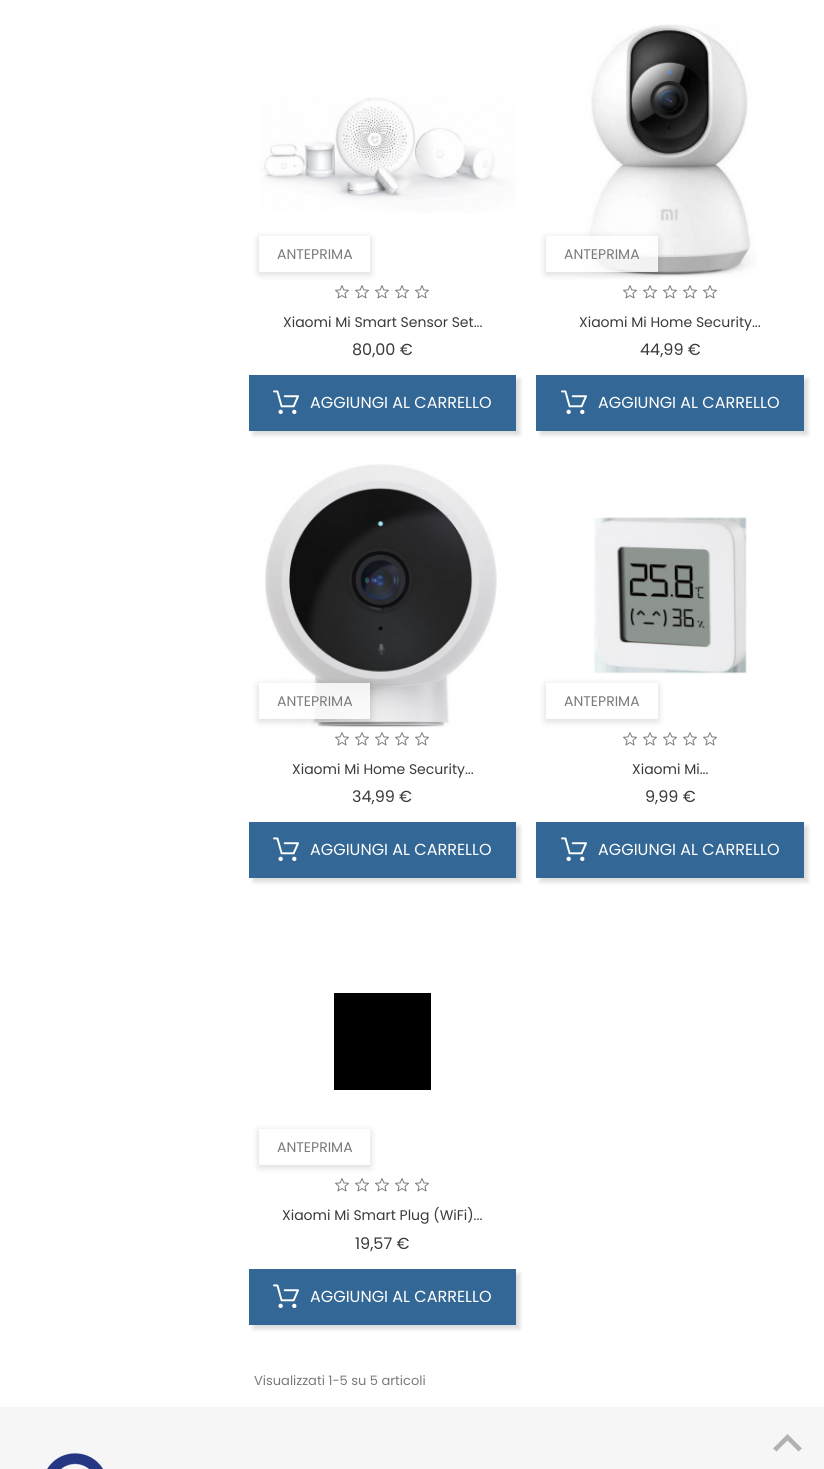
import math
import cairo

surface = cairo.ImageSurface(cairo.FORMAT_RGB24, 824, 1469)
ctx = cairo.Context(surface)
options = cairo.FontOptions()
options.set_hint_metrics(cairo.HINT_METRICS_OFF)
options.set_hint_style(cairo.HINT_STYLE_NONE)
ctx.set_font_options(options)
ctx.set_miter_limit(4)


def round_rect(x, y, w, h, r):
    ctx.new_sub_path()
    for i, (u, v) in enumerate([(x + w - r, y + h - r), (x + r, y + h - r), (x + r, y + r), (x + w - r, y + r)]):
        ctx.arc(u, v, r, i * math.pi / 2, (i + 1) * math.pi / 2)
    ctx.close_path()


def shadow(x, y, w, h, r, blur, alpha):
    ctx.push_group_with_content(cairo.CONTENT_ALPHA)
    ctx.set_operator(cairo.OPERATOR_SOURCE)
    for i in range(15, -16, -2):
        e = blur * i / 6
        if min(w, h) + 2 * e > 0:
            ctx.set_source_rgba(0, 0, 0, alpha * math.erfc((i - 1) / 8.5) / 2)
            round_rect(x - e, y - e, w + 2 * e, h + 2 * e, max(0, min(r + e + blur * .6, min(w, h) / 2 + e)))
            ctx.fill()
    ctx.mask(ctx.pop_group())


def picture(path, x, y, w, h):
    ctx.save()
    ctx.set_source_surface(cairo.ImageSurface.create_from_png(path), x, y)
    ctx.rectangle(x, y, w, h)
    ctx.fill()
    ctx.restore()


ctx.set_source_rgb(0.961, 0.961, 0.961)
ctx.paint()
ctx.set_source_rgb(1, 1, 1)
ctx.rectangle(0, 0, 824, 1407)
ctx.fill()
picture("img1.png", 260, 97, 256, 116)
ctx.save()
ctx.set_fill_rule(cairo.FILL_RULE_EVEN_ODD)
ctx.new_path()
ctx.move_to(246, 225)
ctx.line_to(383, 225)
ctx.line_to(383, 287)
ctx.line_to(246, 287)
ctx.close_path()
ctx.move_to(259, 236)
ctx.line_to(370, 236)
ctx.line_to(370, 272)
ctx.line_to(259, 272)
ctx.close_path()
ctx.clip()
ctx.set_source_rgb(0, 0, 0)
shadow(259, 238, 111, 36, 0, 4, 0.16)
ctx.restore()
ctx.select_font_face("Poppins")
ctx.set_font_size(14)
ctx.set_source_rgb(0.478, 0.478, 0.478)
ctx.move_to(277, 259)
ctx.show_text("ANTEPRIMA")
picture("img2.png", 335, 285, 14, 14)
picture("img2.png", 355, 285, 14, 14)
picture("img2.png", 375, 285, 14, 14)
picture("img2.png", 395, 285, 14, 14)
picture("img2.png", 415, 285, 14, 14)
ctx.set_source_rgb(0.227, 0.227, 0.227)
ctx.move_to(283, 327)
ctx.show_text("Xiaomi Mi Smart Sensor Set...")
ctx.set_font_size(16)
ctx.move_to(352, 355)
ctx.show_text("80,00 €")
ctx.set_source_rgb(0, 0, 0)
shadow(253, 379, 267, 56, 0, 2, 0.14)
ctx.set_source_rgb(0.2, 0.404, 0.588)
ctx.rectangle(249, 375, 267, 56)
ctx.fill()
picture("img3.png", 273, 390, 26, 24)
ctx.set_source_rgb(1, 1, 1)
ctx.move_to(310, 408)
ctx.show_text("AGGIUNGI AL CARRELLO")
picture("img4.png", 582, 24, 175, 254)
ctx.save()
ctx.set_fill_rule(cairo.FILL_RULE_EVEN_ODD)
ctx.new_path()
ctx.move_to(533, 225)
ctx.line_to(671, 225)
ctx.line_to(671, 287)
ctx.line_to(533, 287)
ctx.close_path()
ctx.move_to(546, 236)
ctx.line_to(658, 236)
ctx.line_to(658, 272)
ctx.line_to(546, 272)
ctx.close_path()
ctx.clip()
ctx.set_source_rgb(0, 0, 0)
shadow(546, 238, 112, 36, 0, 4, 0.16)
ctx.restore()
ctx.set_source_rgba(1, 1, 1, 0.82)
ctx.rectangle(582, 236, 76, 36)
ctx.fill()
ctx.set_font_size(14)
ctx.set_source_rgb(0.478, 0.478, 0.478)
ctx.move_to(564, 259)
ctx.show_text("ANTEPRIMA")
picture("img2.png", 623, 285, 14, 14)
picture("img2.png", 643, 285, 14, 14)
picture("img2.png", 663, 285, 14, 14)
picture("img2.png", 683, 285, 14, 14)
picture("img2.png", 703, 285, 14, 14)
ctx.set_source_rgb(0.227, 0.227, 0.227)
ctx.move_to(579, 327)
ctx.show_text("Xiaomi Mi Home Security...")
ctx.set_font_size(16)
ctx.move_to(640, 355)
ctx.show_text("44,99 €")
ctx.set_source_rgb(0, 0, 0)
shadow(540, 379, 268, 56, 0, 2, 0.14)
ctx.set_source_rgb(0.2, 0.404, 0.588)
ctx.rectangle(536, 375, 268, 56)
ctx.fill()
picture("img3.png", 561, 390, 26, 24)
ctx.set_source_rgb(1, 1, 1)
ctx.move_to(598, 408)
ctx.show_text("AGGIUNGI AL CARRELLO")
picture("img5.png", 265, 464, 232, 264)
ctx.save()
ctx.set_fill_rule(cairo.FILL_RULE_EVEN_ODD)
ctx.new_path()
ctx.move_to(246, 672)
ctx.line_to(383, 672)
ctx.line_to(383, 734)
ctx.line_to(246, 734)
ctx.close_path()
ctx.move_to(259, 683)
ctx.line_to(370, 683)
ctx.line_to(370, 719)
ctx.line_to(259, 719)
ctx.close_path()
ctx.clip()
ctx.set_source_rgb(0, 0, 0)
shadow(259, 685, 111, 36, 0, 4, 0.16)
ctx.restore()
ctx.set_source_rgba(1, 1, 1, 0.82)
ctx.rectangle(313, 683, 57, 36)
ctx.fill()
ctx.set_font_size(14)
ctx.set_source_rgb(0.478, 0.478, 0.478)
ctx.move_to(277, 706)
ctx.show_text("ANTEPRIMA")
picture("img2.png", 335, 732, 14, 14)
picture("img2.png", 355, 732, 14, 14)
picture("img2.png", 375, 732, 14, 14)
picture("img2.png", 395, 732, 14, 14)
picture("img2.png", 415, 732, 14, 14)
ctx.set_source_rgb(0.227, 0.227, 0.227)
ctx.move_to(292, 774)
ctx.show_text("Xiaomi Mi Home Security...")
ctx.set_font_size(16)
ctx.move_to(352, 802)
ctx.show_text("34,99 €")
ctx.set_source_rgb(0, 0, 0)
shadow(253, 826, 267, 56, 0, 2, 0.14)
ctx.set_source_rgb(0.2, 0.404, 0.588)
ctx.rectangle(249, 822, 267, 56)
ctx.fill()
picture("img3.png", 273, 837, 26, 24)
ctx.set_source_rgb(1, 1, 1)
ctx.move_to(310, 855)
ctx.show_text("AGGIUNGI AL CARRELLO")
picture("img6.png", 593, 517, 154, 157)
ctx.save()
ctx.set_fill_rule(cairo.FILL_RULE_EVEN_ODD)
ctx.new_path()
ctx.move_to(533, 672)
ctx.line_to(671, 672)
ctx.line_to(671, 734)
ctx.line_to(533, 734)
ctx.close_path()
ctx.move_to(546, 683)
ctx.line_to(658, 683)
ctx.line_to(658, 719)
ctx.line_to(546, 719)
ctx.close_path()
ctx.clip()
ctx.set_source_rgb(0, 0, 0)
shadow(546, 685, 112, 36, 0, 4, 0.16)
ctx.restore()
ctx.set_font_size(14)
ctx.set_source_rgb(0.478, 0.478, 0.478)
ctx.move_to(564, 706)
ctx.show_text("ANTEPRIMA")
picture("img2.png", 623, 732, 14, 14)
picture("img2.png", 643, 732, 14, 14)
picture("img2.png", 663, 732, 14, 14)
picture("img2.png", 683, 732, 14, 14)
picture("img2.png", 703, 732, 14, 14)
ctx.set_source_rgb(0.227, 0.227, 0.227)
ctx.move_to(632, 774)
ctx.show_text("Xiaomi Mi...")
ctx.set_font_size(16)
ctx.move_to(645, 802)
ctx.show_text("9,99 €")
ctx.set_source_rgb(0, 0, 0)
shadow(540, 826, 268, 56, 0, 2, 0.14)
ctx.set_source_rgb(0.2, 0.404, 0.588)
ctx.rectangle(536, 822, 268, 56)
ctx.fill()
picture("img3.png", 561, 837, 26, 24)
ctx.set_source_rgb(1, 1, 1)
ctx.move_to(598, 855)
ctx.show_text("AGGIUNGI AL CARRELLO")
ctx.set_source_rgb(0, 0, 0)
ctx.rectangle(334, 993, 97, 97)
ctx.fill()
ctx.save()
ctx.set_fill_rule(cairo.FILL_RULE_EVEN_ODD)
ctx.new_path()
ctx.move_to(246, 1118)
ctx.line_to(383, 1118)
ctx.line_to(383, 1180)
ctx.line_to(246, 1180)
ctx.close_path()
ctx.move_to(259, 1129)
ctx.line_to(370, 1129)
ctx.line_to(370, 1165)
ctx.line_to(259, 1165)
ctx.close_path()
ctx.clip()
ctx.set_source_rgb(0, 0, 0)
shadow(259, 1131, 111, 36, 0, 4, 0.16)
ctx.restore()
ctx.set_font_size(14)
ctx.set_source_rgb(0.478, 0.478, 0.478)
ctx.move_to(277, 1152)
ctx.show_text("ANTEPRIMA")
picture("img2.png", 335, 1178, 14, 14)
picture("img2.png", 355, 1178, 14, 14)
picture("img2.png", 375, 1178, 14, 14)
picture("img2.png", 395, 1178, 14, 14)
picture("img2.png", 415, 1178, 14, 14)
ctx.set_source_rgb(0.227, 0.227, 0.227)
ctx.move_to(282, 1220)
ctx.show_text("Xiaomi Mi Smart Plug (WiFi)...")
ctx.set_font_size(16)
ctx.move_to(355, 1249)
ctx.show_text("19,57 €")
ctx.set_source_rgb(0, 0, 0)
shadow(253, 1273, 267, 56, 0, 2, 0.14)
ctx.set_source_rgb(0.2, 0.404, 0.588)
ctx.rectangle(249, 1269, 267, 56)
ctx.fill()
picture("img3.png", 273, 1284, 26, 24)
ctx.set_source_rgb(1, 1, 1)
ctx.move_to(310, 1302)
ctx.show_text("AGGIUNGI AL CARRELLO")
ctx.set_font_size(13)
ctx.set_source_rgb(0.478, 0.478, 0.478)
ctx.move_to(254, 1385)
ctx.show_text("Visualizzati 1-5 su 5 articoli")
ctx.set_source_rgb(0.698, 0.698, 0.698)
ctx.new_path()
ctx.move_to(787.5, 1434)
ctx.line_to(802, 1448.5)
ctx.line_to(798.5, 1451.5)
ctx.line_to(787.5, 1440.5)
ctx.line_to(776.5, 1451.5)
ctx.line_to(773, 1448.5)
ctx.close_path()
ctx.fill()
picture("img7.png", 47, 1453, 56, 16)
surface.write_to_png("page.png")
